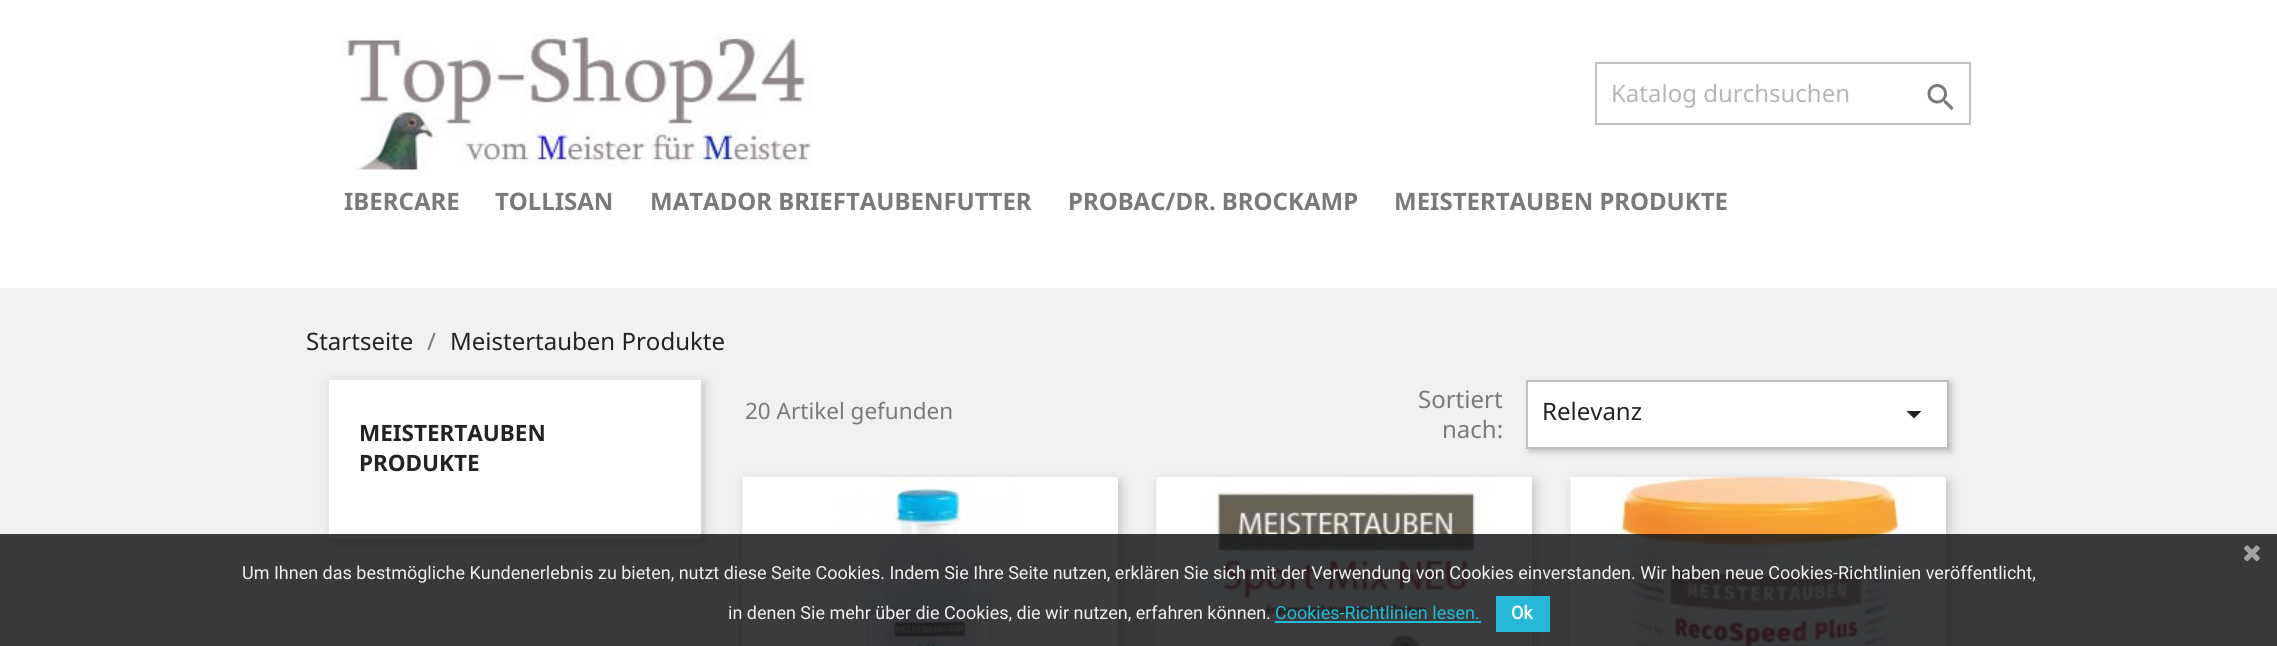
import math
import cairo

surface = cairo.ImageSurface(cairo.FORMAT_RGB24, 2277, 646)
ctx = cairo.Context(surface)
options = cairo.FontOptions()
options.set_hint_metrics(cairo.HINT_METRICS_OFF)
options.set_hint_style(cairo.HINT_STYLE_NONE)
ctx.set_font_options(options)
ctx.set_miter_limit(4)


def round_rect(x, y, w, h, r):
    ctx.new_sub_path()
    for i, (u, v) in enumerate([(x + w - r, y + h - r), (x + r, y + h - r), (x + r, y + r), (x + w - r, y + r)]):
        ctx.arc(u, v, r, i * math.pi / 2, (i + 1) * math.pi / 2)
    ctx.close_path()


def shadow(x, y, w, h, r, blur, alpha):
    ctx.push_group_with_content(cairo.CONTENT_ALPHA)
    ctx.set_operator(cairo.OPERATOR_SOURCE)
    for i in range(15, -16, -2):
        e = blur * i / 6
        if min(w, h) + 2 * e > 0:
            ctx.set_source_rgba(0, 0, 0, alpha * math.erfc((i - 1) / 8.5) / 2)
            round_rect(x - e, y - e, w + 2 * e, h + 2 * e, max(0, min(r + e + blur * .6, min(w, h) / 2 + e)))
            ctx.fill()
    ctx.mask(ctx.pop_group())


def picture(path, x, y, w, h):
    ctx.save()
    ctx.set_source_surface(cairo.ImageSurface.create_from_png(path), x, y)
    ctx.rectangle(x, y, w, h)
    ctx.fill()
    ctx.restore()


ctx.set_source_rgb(1, 1, 1)
ctx.paint()
picture("img1.png", 342, 33, 469, 137)
ctx.rectangle(1596, 63, 374, 61)
ctx.set_source_rgb(0.749, 0.749, 0.749)
ctx.stroke()
ctx.select_font_face("Noto Sans")
ctx.set_font_size(24)
ctx.set_source_rgb(0.718, 0.718, 0.718)
ctx.move_to(1611, 102)
ctx.show_text("Katalog durchsuchen")
picture("img2.png", 1927, 84, 27, 27)
ctx.select_font_face("Noto Sans", cairo.FONT_SLANT_NORMAL, cairo.FONT_WEIGHT_BOLD)
ctx.set_source_rgb(0.478, 0.478, 0.478)
ctx.move_to(344, 210)
ctx.show_text("IBERCARE")
ctx.move_to(495, 210)
ctx.show_text("TOLLISAN")
ctx.move_to(650, 210)
ctx.show_text("MATADOR BRIEFTAUBENFUTTER")
ctx.move_to(1068, 210)
ctx.show_text("PROBAC/DR. BROCKAMP")
ctx.move_to(1394, 210)
ctx.show_text("MEISTERTAUBEN PRODUKTE")
ctx.set_source_rgb(0.945, 0.945, 0.945)
ctx.rectangle(0, 288, 2277, 358)
ctx.fill()
ctx.select_font_face("Noto Sans")
ctx.set_source_rgb(0.137, 0.137, 0.137)
ctx.move_to(306, 350)
ctx.show_text("Startseite")
ctx.set_source_rgb(0.478, 0.478, 0.478)
ctx.move_to(427, 350)
ctx.show_text("/")
ctx.set_source_rgb(0.137, 0.137, 0.137)
ctx.move_to(450, 350)
ctx.show_text("Meistertauben Produkte")
ctx.set_font_size(22.5)
ctx.set_source_rgb(0.478, 0.478, 0.478)
ctx.move_to(745, 419)
ctx.show_text("20 Artikel gefunden")
ctx.set_font_size(24)
ctx.move_to(1418, 408)
ctx.show_text("Sortiert")
ctx.move_to(1442, 438)
ctx.show_text("nach:")
ctx.set_source_rgb(0, 0, 0)
shadow(1529, 383, 423, 69, 0, 3, 0.2)
ctx.set_source_rgb(1, 1, 1)
ctx.rectangle(1527, 381, 421, 67)
ctx.fill_preserve()
ctx.set_source_rgb(0.749, 0.749, 0.749)
ctx.stroke()
ctx.set_source_rgb(0.137, 0.137, 0.137)
ctx.move_to(1542, 420)
ctx.show_text("Relevanz")
ctx.new_path()
ctx.move_to(1906.5, 411)
ctx.line_to(1921.5, 411)
ctx.line_to(1914, 418.5)
ctx.close_path()
ctx.fill()
ctx.set_source_rgb(0, 0, 0)
shadow(746, 482, 375, 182, 0, 6, 0.2)
ctx.set_source_rgb(1, 1, 1)
ctx.rectangle(1117, 479, 1, 167)
ctx.fill()
picture("img3.png", 742, 477, 376, 169)
ctx.set_source_rgb(0, 0, 0)
shadow(1160, 482, 375, 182, 0, 6, 0.2)
ctx.set_source_rgb(1, 1, 1)
ctx.rectangle(1531, 479, 1, 167)
ctx.fill()
picture("img4.png", 1156, 477, 376, 169)
ctx.set_source_rgb(0, 0, 0)
shadow(1574, 482, 375, 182, 0, 6, 0.2)
ctx.set_source_rgb(1, 1, 1)
ctx.rectangle(1945, 479, 1, 167)
ctx.fill()
picture("img5.png", 1570, 477, 376, 169)
ctx.set_source_rgb(0, 0, 0)
shadow(332, 383, 372, 159, 0, 6, 0.2)
ctx.set_source_rgb(1, 1, 1)
ctx.rectangle(329, 380, 372, 159)
ctx.fill()
ctx.select_font_face("Noto Sans", cairo.FONT_SLANT_NORMAL, cairo.FONT_WEIGHT_BOLD)
ctx.set_font_size(22.5)
ctx.set_source_rgb(0.137, 0.137, 0.137)
ctx.move_to(359, 441)
ctx.show_text("MEISTERTAUBEN")
ctx.move_to(359, 471)
ctx.show_text("PRODUKTE")
ctx.set_source_rgba(0.09, 0.098, 0.11, 0.85)
ctx.rectangle(0, 534, 2277, 112)
ctx.fill()
picture("img6.png", 2244, 545, 16, 17)
ctx.select_font_face("Roboto")
ctx.set_font_size(18)
ctx.set_source_rgb(0.937, 0.937, 0.937)
ctx.move_to(242, 579)
ctx.show_text("Um Ihnen das bestmögliche Kundenerlebnis zu bieten, nutzt diese Seite Cookies. Indem Sie Ihre Seite nutzen, erklären Sie sich mit der Verwendung von Cookies einverstanden. Wir haben neue Cookies-Richtlinien veröffentlicht,")
ctx.move_to(728, 619)
ctx.show_text("in denen Sie mehr über die Cookies, die wir nutzen, erfahren können.")
ctx.set_source_rgb(0.145, 0.725, 0.843)
ctx.move_to(1275, 619)
ctx.show_text("Cookies-Richtlinien lesen.")
ctx.rectangle(1275, 621, 206, 2)
ctx.fill()
ctx.rectangle(1496, 596, 54, 36)
ctx.fill()
ctx.select_font_face("Roboto", cairo.FONT_SLANT_NORMAL, cairo.FONT_WEIGHT_BOLD)
ctx.set_source_rgb(1, 1, 1)
ctx.move_to(1511, 619)
ctx.show_text("Ok")
surface.write_to_png("page.png")
